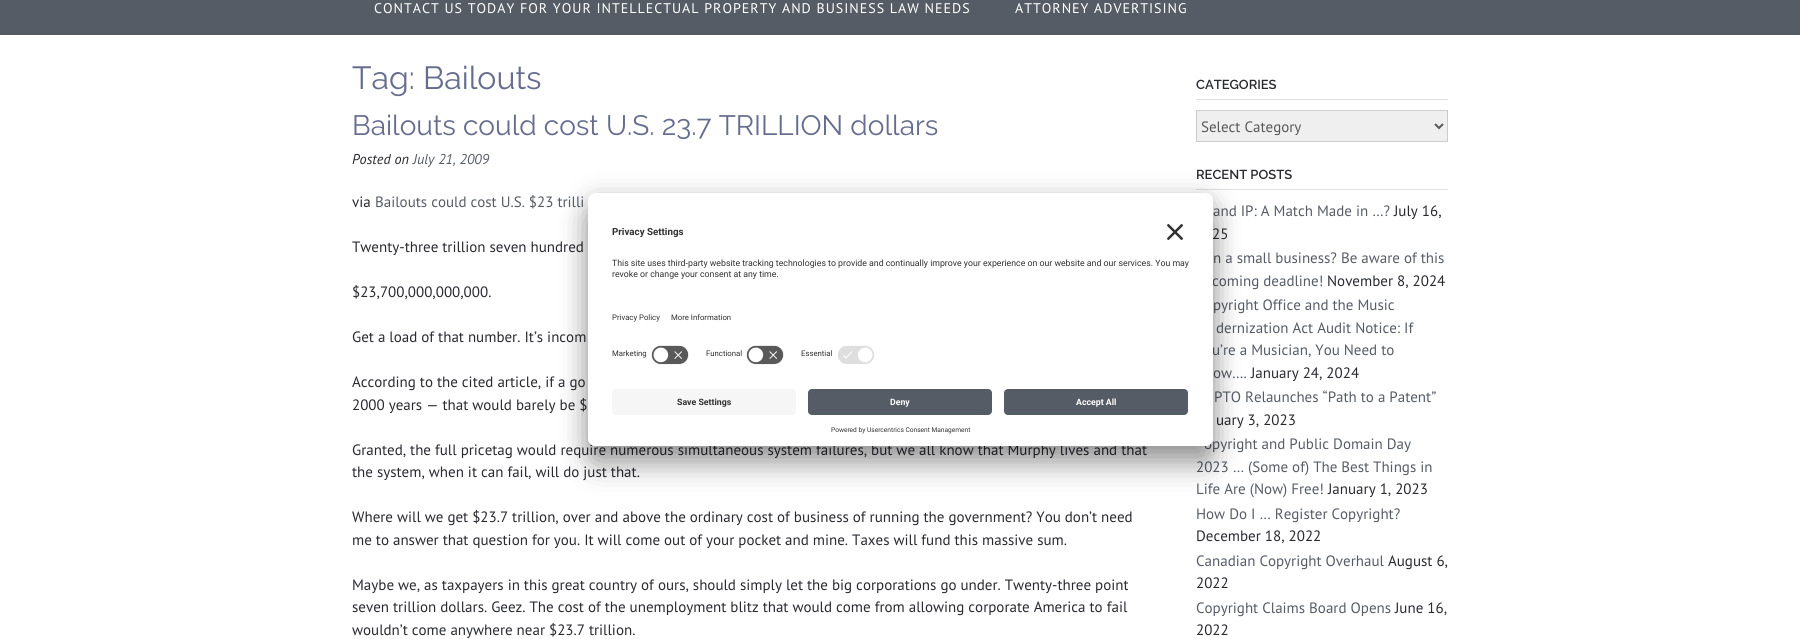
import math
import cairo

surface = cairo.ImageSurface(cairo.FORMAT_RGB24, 1800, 639)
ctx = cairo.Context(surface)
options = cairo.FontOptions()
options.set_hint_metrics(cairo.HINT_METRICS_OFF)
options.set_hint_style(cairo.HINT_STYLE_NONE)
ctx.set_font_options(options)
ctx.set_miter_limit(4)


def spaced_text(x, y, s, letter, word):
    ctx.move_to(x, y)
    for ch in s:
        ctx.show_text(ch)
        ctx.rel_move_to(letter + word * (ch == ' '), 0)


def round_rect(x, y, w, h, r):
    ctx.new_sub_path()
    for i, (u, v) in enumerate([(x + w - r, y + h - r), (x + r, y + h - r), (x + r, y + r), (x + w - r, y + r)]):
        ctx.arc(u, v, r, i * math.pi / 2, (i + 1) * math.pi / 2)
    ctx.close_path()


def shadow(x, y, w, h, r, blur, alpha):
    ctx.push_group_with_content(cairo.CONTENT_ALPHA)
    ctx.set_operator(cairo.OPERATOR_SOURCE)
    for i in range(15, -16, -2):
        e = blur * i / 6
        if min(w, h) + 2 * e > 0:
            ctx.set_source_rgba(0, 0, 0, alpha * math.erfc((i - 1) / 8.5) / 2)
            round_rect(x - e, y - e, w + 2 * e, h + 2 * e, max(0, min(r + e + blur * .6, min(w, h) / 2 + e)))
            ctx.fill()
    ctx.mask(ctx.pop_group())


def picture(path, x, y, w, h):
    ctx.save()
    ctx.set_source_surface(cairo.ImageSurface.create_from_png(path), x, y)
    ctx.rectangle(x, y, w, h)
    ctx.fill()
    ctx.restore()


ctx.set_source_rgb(1, 1, 1)
ctx.paint()
ctx.set_source_rgb(0.337, 0.361, 0.4)
ctx.rectangle(0, 0, 1800, 35)
ctx.fill()
ctx.select_font_face("PT Sans")
ctx.set_font_size(14)
ctx.set_source_rgb(1, 1, 1)
spaced_text(374, 13, "CONTACT US TODAY FOR YOUR INTELLECTUAL PROPERTY AND BUSINESS LAW NEEDS", 1, 0)
spaced_text(1015, 13, "ATTORNEY ADVERTISING", 1, 0)
ctx.select_font_face("Raleway")
ctx.set_font_size(32)
ctx.set_source_rgb(0.396, 0.424, 0.557)
ctx.move_to(352, 89)
ctx.show_text("Tag: Bailouts")
ctx.set_font_size(28)
ctx.move_to(352, 135)
ctx.show_text("Bailouts could cost U.S. 23.7 TRILLION dollars")
ctx.select_font_face("PT Sans", cairo.FONT_SLANT_ITALIC)
ctx.set_font_size(14.25)
ctx.set_source_rgb(0.161, 0.165, 0.188)
ctx.move_to(352, 164)
ctx.show_text("Posted on")
ctx.set_source_rgb(0.337, 0.361, 0.4)
ctx.move_to(413, 164)
ctx.show_text("July 21, 2009")
ctx.select_font_face("PT Sans")
ctx.set_font_size(15)
ctx.set_source_rgb(0.161, 0.165, 0.188)
ctx.move_to(352, 207)
ctx.show_text("via")
ctx.set_source_rgb(0.337, 0.361, 0.4)
ctx.move_to(375, 207)
ctx.show_text("Bailouts could cost U.S. $23 trilli")
ctx.set_source_rgb(0.161, 0.165, 0.188)
ctx.move_to(352, 252)
ctx.show_text("Twenty-three trillion seven hundred")
ctx.move_to(352, 297)
ctx.show_text("$23,700,000,000,000.")
ctx.move_to(352, 342)
ctx.show_text("Get a load of that number. It’s incom")
ctx.move_to(352, 387)
ctx.show_text("According to the cited article, if a go")
ctx.move_to(352, 410)
ctx.show_text("2000 years — that would barely be $")
ctx.move_to(352, 455)
ctx.show_text("Granted, the full pricetag would require numerous simultaneous system failures, but we all know that Murphy lives and that")
ctx.move_to(352, 477)
ctx.show_text("the system, when it can fail, will do just that.")
ctx.move_to(352, 522)
ctx.show_text("Where will we get $23.7 trillion, over and above the ordinary cost of business of running the government? You don’t need")
ctx.move_to(352, 545)
ctx.show_text("me to answer that question for you. It will come out of your pocket and mine. Taxes will fund this massive sum.")
ctx.move_to(352, 590)
ctx.show_text("Maybe we, as taxpayers in this great country of ours, should simply let the big corporations go under. Twenty-three point")
ctx.move_to(352, 612)
ctx.show_text("seven trillion dollars. Geez. The cost of the unemployment blitz that would come from allowing corporate America to fail")
ctx.move_to(352, 635)
ctx.show_text("wouldn’t come anywhere near $23.7 trillion.")
ctx.set_source_rgb(0.878, 0.878, 0.878)
ctx.rectangle(1196, 99, 252, 1)
ctx.fill()
ctx.select_font_face("Raleway SemiBold")
ctx.set_font_size(13)
ctx.set_source_rgb(0.161, 0.165, 0.188)
ctx.move_to(1196, 89)
ctx.show_text("CATEGORIES")
ctx.set_source_rgb(0.937, 0.937, 0.937)
ctx.rectangle(1196.5, 110.5, 251, 31)
ctx.fill_preserve()
ctx.set_source_rgb(0.8, 0.8, 0.8)
ctx.set_line_width(1)
ctx.stroke()
ctx.new_path()
ctx.move_to(1435, 124)
ctx.line_to(1439, 128)
ctx.line_to(1443, 124)
ctx.set_source_rgb(0.345, 0.345, 0.353)
ctx.set_line_width(2)
ctx.stroke()
ctx.select_font_face("PT Sans")
ctx.set_font_size(15)
ctx.move_to(1201, 132)
ctx.show_text("Select Category")
ctx.set_source_rgb(0.878, 0.878, 0.878)
ctx.rectangle(1196, 189, 252, 1)
ctx.fill()
ctx.select_font_face("Raleway SemiBold")
ctx.set_font_size(13)
ctx.set_source_rgb(0.161, 0.165, 0.188)
ctx.move_to(1196, 179)
ctx.show_text("RECENT POSTS")
ctx.select_font_face("PT Sans")
ctx.set_font_size(15)
ctx.set_source_rgb(0.337, 0.361, 0.4)
ctx.move_to(1213, 216)
ctx.show_text("and IP: A Match Made in …?")
ctx.set_source_rgb(0.161, 0.165, 0.188)
ctx.move_to(1394, 216)
ctx.show_text("July 16,")
ctx.move_to(1212, 239)
ctx.show_text("25")
ctx.set_source_rgb(0.337, 0.361, 0.4)
ctx.move_to(1213, 263)
ctx.show_text("n a small business? Be aware of this")
ctx.move_to(1212, 286)
ctx.show_text("coming deadline!")
ctx.set_source_rgb(0.161, 0.165, 0.188)
ctx.move_to(1327, 286)
ctx.show_text("November 8, 2024")
ctx.set_source_rgb(0.337, 0.361, 0.4)
ctx.move_to(1213, 310)
ctx.show_text("pyright Office and the Music")
ctx.move_to(1216, 333)
ctx.show_text("dernization Act Audit Notice: If")
ctx.move_to(1212, 355)
ctx.show_text("u’re a Musician, You Need to")
ctx.move_to(1213, 378)
ctx.show_text("ow….")
ctx.set_source_rgb(0.161, 0.165, 0.188)
ctx.move_to(1251, 378)
ctx.show_text("January 24, 2024")
ctx.set_source_rgb(0.337, 0.361, 0.4)
ctx.move_to(1214, 402)
ctx.show_text("PTO Relaunches “Path to a Patent”")
ctx.set_source_rgb(0.161, 0.165, 0.188)
ctx.move_to(1216, 425)
ctx.show_text("uary 3, 2023")
ctx.set_source_rgb(0.337, 0.361, 0.4)
ctx.move_to(1204, 449)
ctx.show_text("opyright and Public Domain Day")
ctx.move_to(1196, 472)
ctx.show_text("2023 … (Some of) The Best Things in")
ctx.move_to(1196, 494)
ctx.show_text("Life Are (Now) Free!")
ctx.set_source_rgb(0.161, 0.165, 0.188)
ctx.move_to(1328, 494)
ctx.show_text("January 1, 2023")
ctx.set_source_rgb(0.337, 0.361, 0.4)
ctx.move_to(1196, 519)
ctx.show_text("How Do I … Register Copyright?")
ctx.set_source_rgb(0.161, 0.165, 0.188)
ctx.move_to(1196, 541)
ctx.show_text("December 18, 2022")
ctx.set_source_rgb(0.337, 0.361, 0.4)
ctx.move_to(1196, 566)
ctx.show_text("Canadian Copyright Overhaul")
ctx.set_source_rgb(0.161, 0.165, 0.188)
ctx.move_to(1388, 566)
ctx.show_text("August 6,")
ctx.move_to(1196, 588)
ctx.show_text("2022")
ctx.set_source_rgb(0.337, 0.361, 0.4)
ctx.move_to(1196, 613)
ctx.show_text("Copyright Claims Board Opens")
ctx.set_source_rgb(0.161, 0.165, 0.188)
ctx.move_to(1395, 613)
ctx.show_text("June 16,")
ctx.move_to(1196, 635)
ctx.show_text("2022")
ctx.set_source_rgb(0, 0, 0)
shadow(588, 213, 625, 253, 8, 14, 0.3)
shadow(588, 198, 625, 253, 8, 13, 0.22)
ctx.set_source_rgb(1, 1, 1)
round_rect(588, 193, 625, 253, 8)
ctx.fill()
ctx.save()
round_rect(588, 193, 625, 253, 8)
ctx.clip()
ctx.new_path()
ctx.move_to(596, 193)
ctx.line_to(1205, 193)
ctx.curve_to(1209.5, 193, 1213, 196.5, 1213, 201)
ctx.line_to(1213, 381)
ctx.line_to(588, 381)
ctx.line_to(588, 201)
ctx.curve_to(588, 196.5, 591.5, 193, 596, 193)
ctx.close_path()
ctx.clip()
ctx.rectangle(588, 194, 625, 187)
ctx.fill()
ctx.restore()
ctx.select_font_face("Roboto", cairo.FONT_SLANT_NORMAL, cairo.FONT_WEIGHT_BOLD)
ctx.set_font_size(9.75)
ctx.set_source_rgb(0.188, 0.188, 0.188)
ctx.move_to(612, 235)
ctx.show_text("Privacy Settings")
picture("img1.png", 1167, 224, 16, 16)
ctx.select_font_face("Roboto")
ctx.set_font_size(8.75)
ctx.move_to(612, 266)
ctx.show_text("This site uses third-party website tracking technologies to provide and continually improve your experience on our website and our services. You may")
ctx.move_to(612, 277)
ctx.show_text("revoke or change your consent at any time.")
ctx.set_font_size(7.75)
ctx.move_to(612, 320)
ctx.show_text("Privacy Policy")
ctx.move_to(671, 320)
ctx.show_text("More Information")
ctx.move_to(612, 356)
ctx.show_text("Marketing")
picture("img2.png", 651, 345, 38, 20)
ctx.move_to(706, 356)
ctx.show_text("Functional")
picture("img2.png", 746, 345, 38, 20)
ctx.move_to(801, 356)
ctx.show_text("Essential")
picture("img3.png", 837, 345, 38, 19)
ctx.set_source_rgb(1, 1, 1)
ctx.new_path()
ctx.move_to(588, 381)
ctx.line_to(1213, 381)
ctx.line_to(1213, 438)
ctx.curve_to(1213, 442.5, 1209.5, 446, 1205, 446)
ctx.line_to(596, 446)
ctx.curve_to(591.5, 446, 588, 442.5, 588, 438)
ctx.close_path()
ctx.fill()
ctx.set_source_rgb(0.961, 0.961, 0.961)
round_rect(612, 389, 184, 26, 4)
ctx.fill()
ctx.select_font_face("Roboto", cairo.FONT_SLANT_NORMAL, cairo.FONT_WEIGHT_BOLD)
ctx.set_font_size(8.75)
ctx.set_source_rgb(0.188, 0.188, 0.188)
ctx.move_to(677, 405)
ctx.show_text("Save Settings")
ctx.set_source_rgb(0.337, 0.361, 0.4)
round_rect(808, 389, 184, 26, 4)
ctx.fill()
ctx.set_source_rgb(1, 1, 1)
ctx.move_to(890, 405)
ctx.show_text("Deny")
ctx.set_source_rgb(0.337, 0.361, 0.4)
round_rect(1004, 389, 184, 26, 4)
ctx.fill()
ctx.set_source_rgb(1, 1, 1)
ctx.move_to(1076, 405)
ctx.show_text("Accept All")
ctx.select_font_face("Roboto")
ctx.set_font_size(6.6)
ctx.set_source_rgb(0.188, 0.188, 0.188)
ctx.move_to(831, 432)
ctx.show_text("Powered by Usercentrics Consent Management")
surface.write_to_png("page.png")
